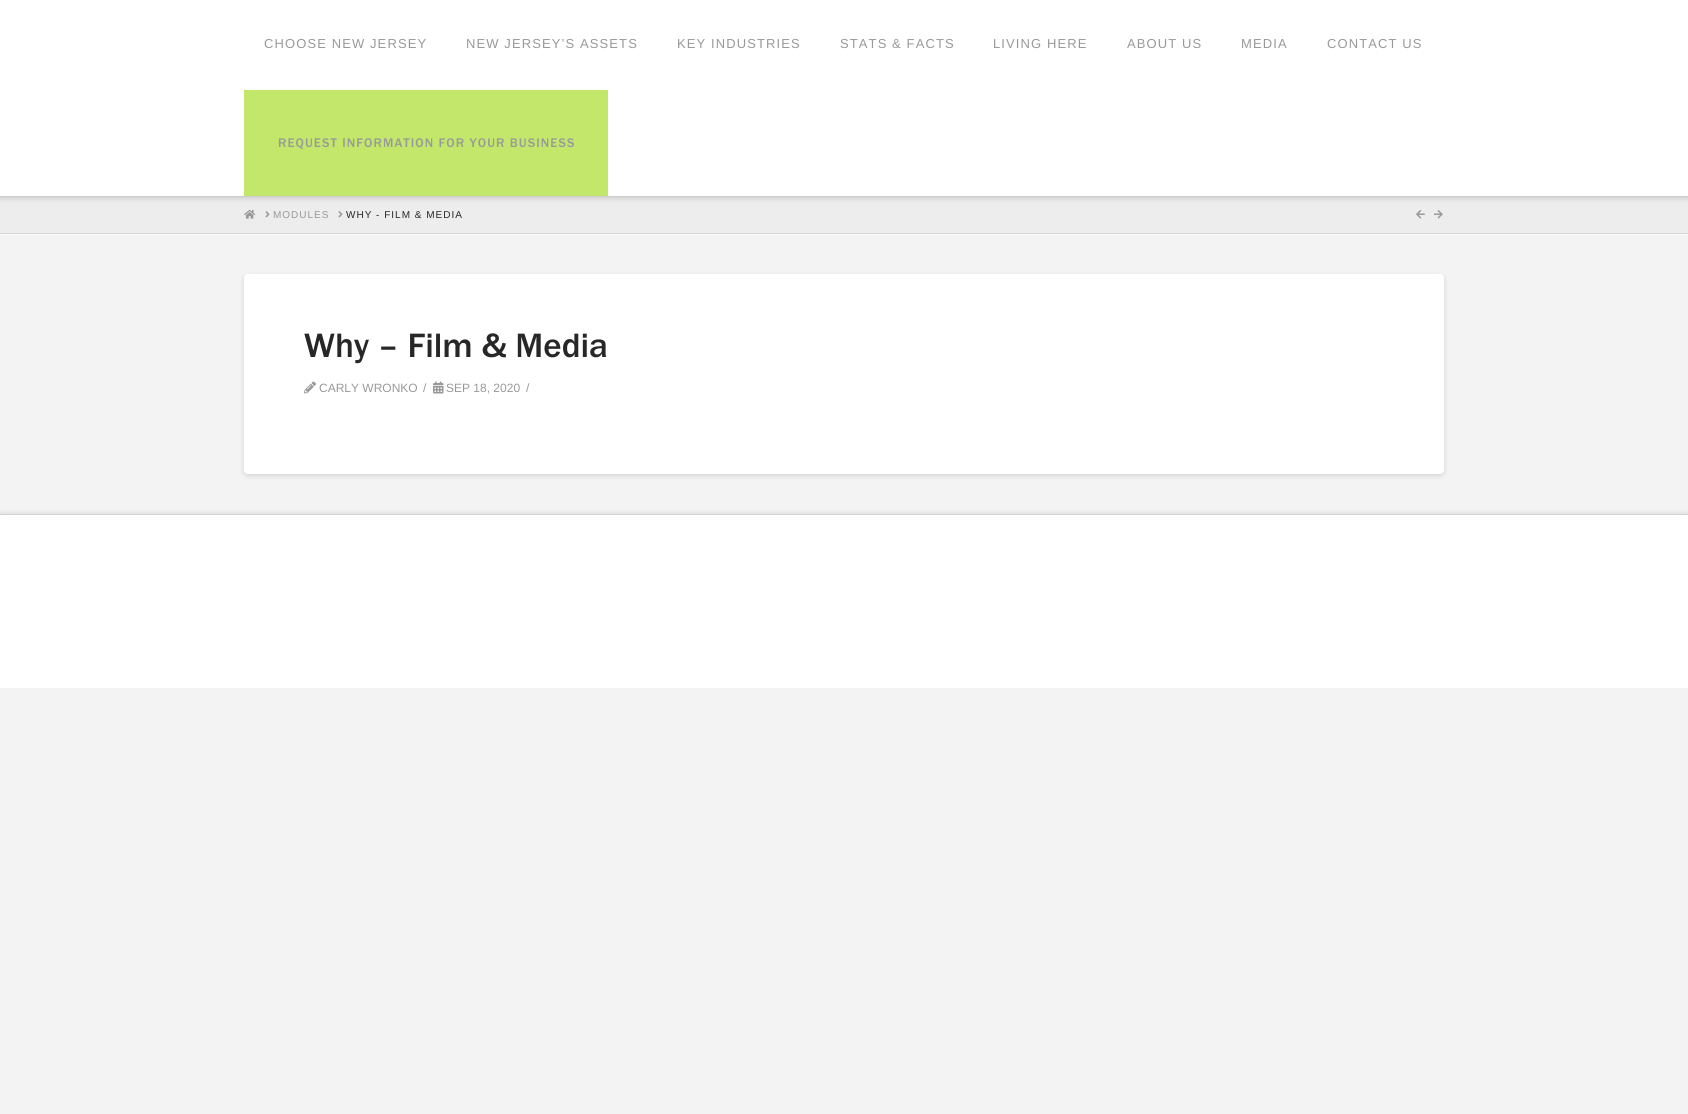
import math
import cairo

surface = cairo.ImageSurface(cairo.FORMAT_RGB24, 1688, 1114)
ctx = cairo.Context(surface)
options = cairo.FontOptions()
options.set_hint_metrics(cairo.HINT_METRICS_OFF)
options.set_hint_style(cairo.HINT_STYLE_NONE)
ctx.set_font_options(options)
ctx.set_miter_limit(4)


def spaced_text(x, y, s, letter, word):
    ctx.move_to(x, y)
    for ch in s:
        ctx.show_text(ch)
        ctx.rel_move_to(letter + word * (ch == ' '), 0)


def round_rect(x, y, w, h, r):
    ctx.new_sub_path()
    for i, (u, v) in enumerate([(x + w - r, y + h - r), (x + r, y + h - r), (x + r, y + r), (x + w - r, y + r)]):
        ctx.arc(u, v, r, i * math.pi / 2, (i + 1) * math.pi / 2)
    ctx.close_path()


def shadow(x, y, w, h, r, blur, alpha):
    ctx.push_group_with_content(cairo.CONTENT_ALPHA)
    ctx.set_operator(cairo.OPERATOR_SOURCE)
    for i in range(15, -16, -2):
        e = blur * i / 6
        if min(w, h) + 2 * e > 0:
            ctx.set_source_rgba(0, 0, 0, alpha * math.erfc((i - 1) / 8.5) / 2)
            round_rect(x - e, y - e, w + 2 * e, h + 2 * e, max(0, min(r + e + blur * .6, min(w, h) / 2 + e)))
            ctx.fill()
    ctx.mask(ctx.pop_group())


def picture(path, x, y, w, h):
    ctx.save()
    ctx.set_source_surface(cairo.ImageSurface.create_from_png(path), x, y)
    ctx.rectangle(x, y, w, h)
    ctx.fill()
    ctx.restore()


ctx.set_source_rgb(0.953, 0.953, 0.953)
ctx.paint()
ctx.set_source_rgb(0.929, 0.929, 0.929)
ctx.rectangle(0, 197, 1688, 36)
ctx.fill()
ctx.set_source_rgb(0, 0, 0)
shadow(0, 2, 1688, 197, 0, 2.5, 0.13)
ctx.set_source_rgb(1, 1, 1)
ctx.rectangle(0, 0, 1688, 196)
ctx.fill()
ctx.set_source_rgb(0.8, 0.8, 0.8)
ctx.rectangle(0, 196, 1688, 1)
ctx.fill()
ctx.select_font_face("Liberation Sans")
ctx.set_font_size(13)
ctx.set_source_rgb(0.6, 0.6, 0.6)
spaced_text(264, 48, "CHOOSE NEW JERSEY", 1.1, 0)
spaced_text(466, 48, "NEW JERSEY’S ASSETS", 1.1, 0)
spaced_text(677, 48, "KEY INDUSTRIES", 1.1, 0)
spaced_text(840, 48, "STATS & FACTS", 1.1, 0)
spaced_text(993, 48, "LIVING HERE", 1.1, 0)
spaced_text(1127, 48, "ABOUT US", 1.1, 0)
spaced_text(1241, 48, "MEDIA", 1.1, 0)
spaced_text(1327, 48, "CONTACT US", 1.1, 0)
ctx.set_source_rgb(0.761, 0.906, 0.42)
ctx.rectangle(244, 90, 364, 106)
ctx.fill()
ctx.select_font_face("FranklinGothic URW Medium")
ctx.set_source_rgb(0.6, 0.6, 0.6)
spaced_text(278, 147, "REQUEST INFORMATION FOR YOUR BUSINESS", 1.1, 0)
ctx.set_source_rgb(0.988, 0.988, 0.988)
ctx.rectangle(0, 234, 1688, 1)
ctx.fill()
ctx.set_source_rgb(0.835, 0.835, 0.835)
ctx.rectangle(0, 233, 1688, 1)
ctx.fill()
picture("img1.png", 244, 209, 12, 10)
picture("img2.png", 265, 211, 5, 7)
ctx.select_font_face("Liberation Sans")
ctx.set_font_size(10)
ctx.set_source_rgb(0.6, 0.6, 0.6)
spaced_text(273, 218, "MODULES", 1, 0)
picture("img2.png", 338, 211, 5, 7)
ctx.set_source_rgb(0.153, 0.153, 0.153)
spaced_text(346, 218, "WHY - FILM & MEDIA", 1, 0)
picture("img3.png", 1416, 210, 9, 9)
picture("img4.png", 1434, 210, 9, 9)
ctx.set_source_rgb(0, 0, 0)
shadow(244, 276, 1200, 200, 4, 2.5, 0.13)
ctx.set_source_rgb(1, 1, 1)
round_rect(244, 274, 1200, 200, 4)
ctx.fill()
ctx.select_font_face("FranklinGothic URW Medium")
ctx.set_font_size(35)
ctx.set_source_rgb(0.153, 0.153, 0.153)
ctx.move_to(304, 357)
ctx.show_text("Why – Film & Media")
picture("img5.png", 304, 381, 12, 13)
ctx.select_font_face("Liberation Sans")
ctx.set_font_size(12)
ctx.set_source_rgb(0.6, 0.6, 0.6)
ctx.move_to(319, 392)
ctx.show_text("CARLY WRONKO")
ctx.move_to(423, 392)
ctx.show_text("/")
picture("img6.png", 433, 381, 11, 13)
ctx.move_to(446, 392)
ctx.show_text("SEP 18, 2020")
ctx.move_to(526, 392)
ctx.show_text("/")
ctx.set_source_rgb(0, 0, 0)
shadow(0, 512, 1688, 174, 0, 2, 0.07)
ctx.set_source_rgb(1, 1, 1)
ctx.rectangle(0, 515, 1688, 173)
ctx.fill()
ctx.set_source_rgb(0.831, 0.831, 0.831)
ctx.rectangle(0, 514, 1688, 1)
ctx.fill()
surface.write_to_png("page.png")
